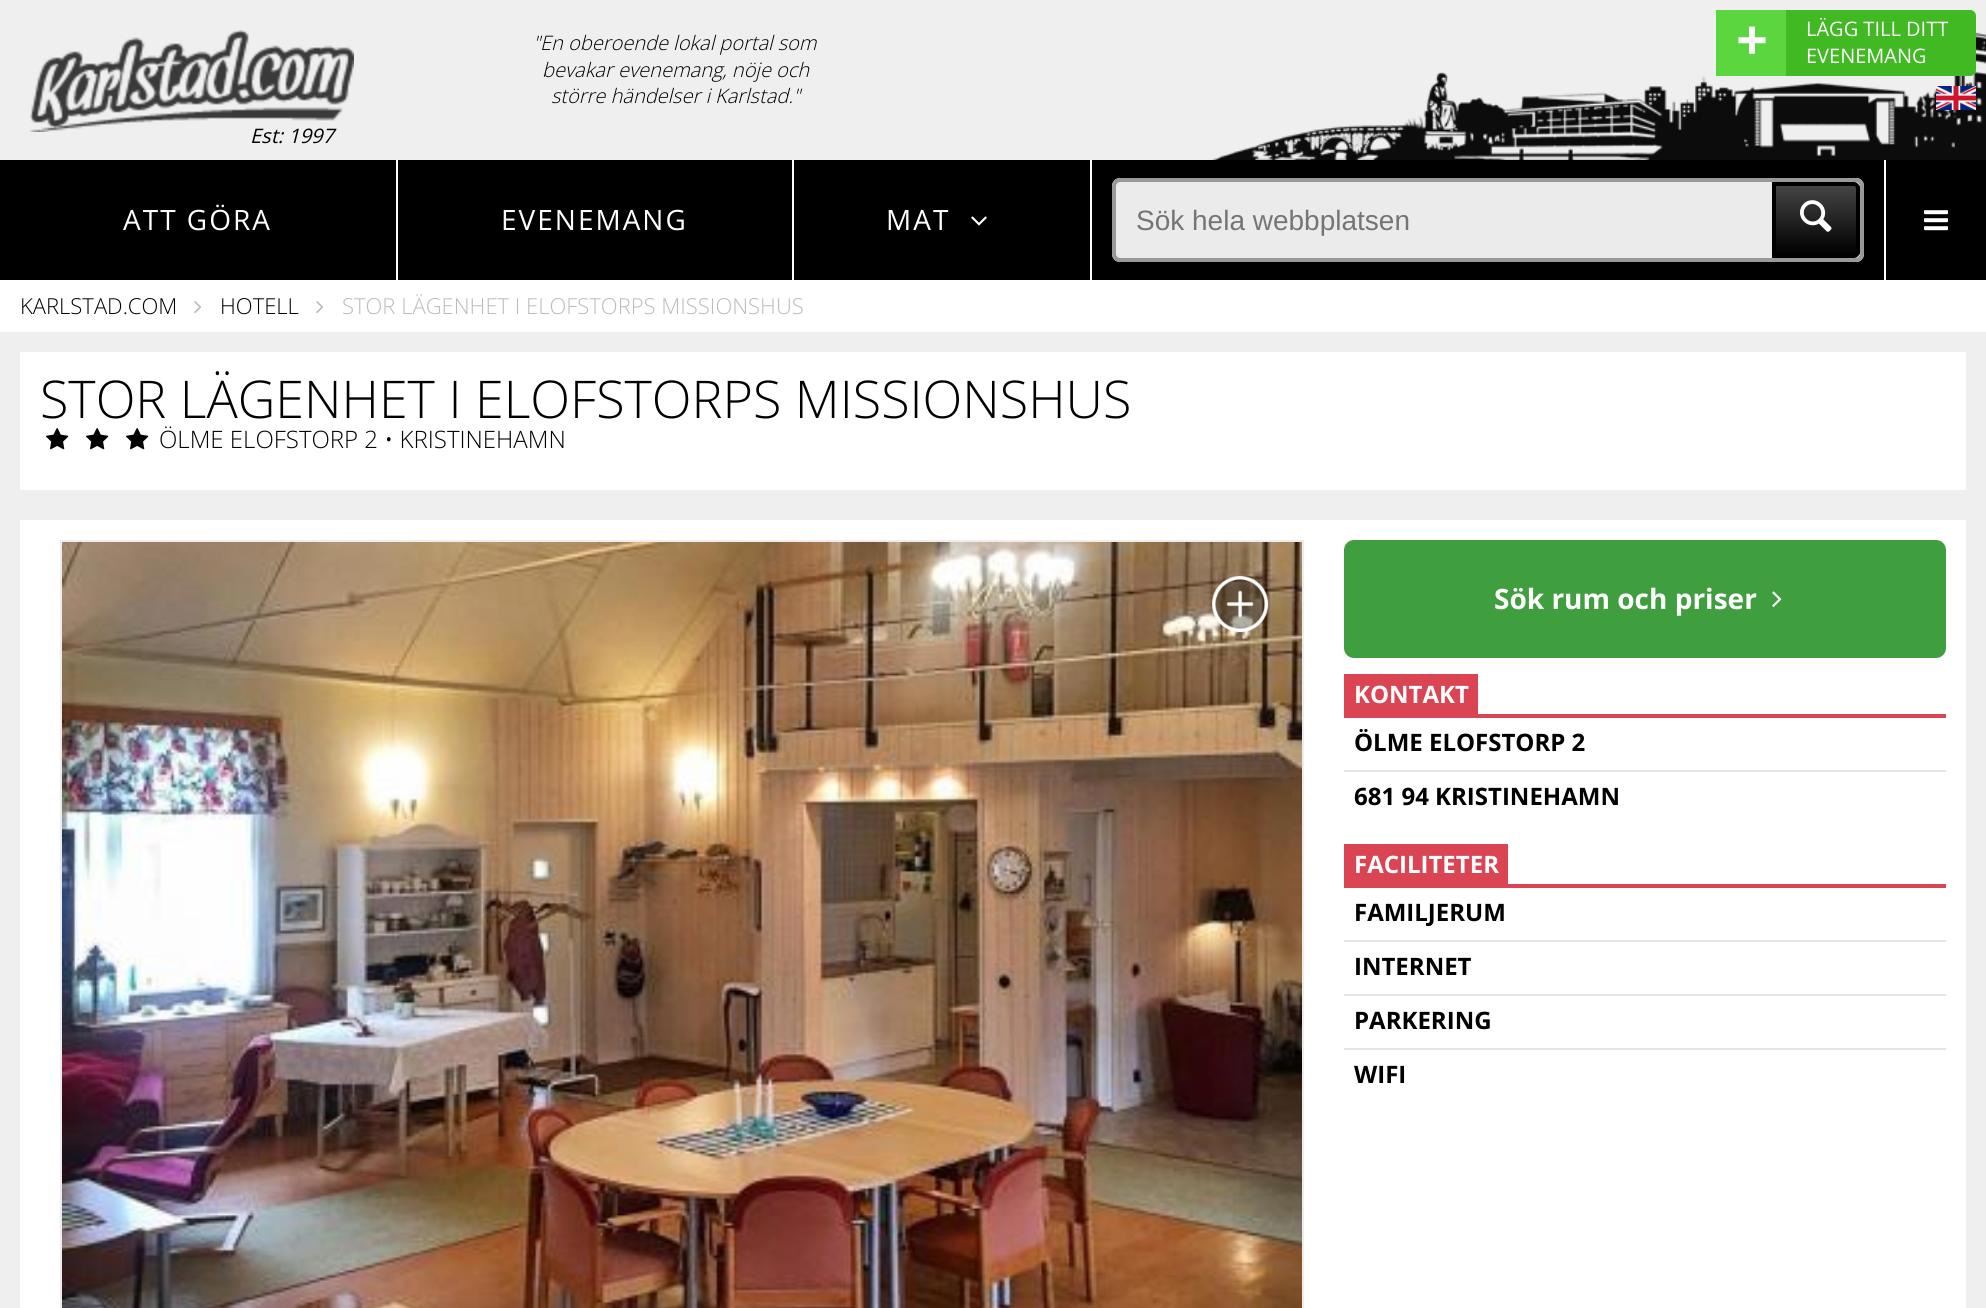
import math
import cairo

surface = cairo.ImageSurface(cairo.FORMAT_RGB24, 1986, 1308)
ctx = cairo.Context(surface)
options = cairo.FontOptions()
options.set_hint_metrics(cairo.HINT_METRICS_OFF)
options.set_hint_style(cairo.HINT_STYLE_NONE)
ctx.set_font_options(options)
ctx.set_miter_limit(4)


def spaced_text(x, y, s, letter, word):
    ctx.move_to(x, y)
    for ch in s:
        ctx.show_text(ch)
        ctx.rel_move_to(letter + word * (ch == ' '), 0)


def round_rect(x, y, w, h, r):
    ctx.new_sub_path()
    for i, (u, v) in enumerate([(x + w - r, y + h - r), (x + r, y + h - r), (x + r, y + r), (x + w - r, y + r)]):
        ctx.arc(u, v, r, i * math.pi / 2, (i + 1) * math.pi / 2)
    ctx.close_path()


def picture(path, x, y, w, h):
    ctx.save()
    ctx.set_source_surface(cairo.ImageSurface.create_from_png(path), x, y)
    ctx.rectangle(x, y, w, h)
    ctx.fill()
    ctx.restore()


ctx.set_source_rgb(0.937, 0.937, 0.937)
ctx.paint()
ctx.select_font_face("Open Sans Light", cairo.FONT_SLANT_ITALIC)
ctx.set_font_size(20)
ctx.set_source_rgb(0, 0, 0)
ctx.move_to(533, 50)
ctx.show_text("\"En oberoende lokal portal som")
ctx.move_to(542, 77)
ctx.show_text("bevakar evenemang, nöje och")
ctx.move_to(551, 103)
ctx.show_text("större händelser i Karlstad.\"")
picture("img1.png", 1212, 32, 774, 128)
ctx.select_font_face("Open Sans", cairo.FONT_SLANT_ITALIC)
ctx.move_to(250, 143)
ctx.show_text("Est: 1997")
picture("img2.png", 30, 30, 324, 102)
ctx.set_source_rgb(0.251, 0.725, 0.133)
round_rect(1716, 10, 260, 66, 6)
ctx.fill()
ctx.set_source_rgb(0.361, 0.839, 0.243)
ctx.rectangle(1716, 10, 70, 66)
ctx.fill()
ctx.select_font_face("Open Sans", cairo.FONT_SLANT_NORMAL, cairo.FONT_WEIGHT_BOLD)
ctx.set_font_size(56)
ctx.set_source_rgb(1, 1, 1)
ctx.move_to(1736, 60)
ctx.show_text("+")
ctx.select_font_face("Open Sans")
ctx.set_font_size(20)
ctx.move_to(1806, 36)
ctx.show_text("LÄGG TILL DITT")
ctx.move_to(1806, 63)
ctx.show_text("EVENEMANG")
picture("img3.png", 1936, 86, 40, 24)
ctx.set_source_rgb(0, 0, 0)
ctx.rectangle(0, 160, 396, 120)
ctx.fill()
ctx.set_source_rgb(1, 1, 1)
ctx.rectangle(396, 160, 2, 120)
ctx.fill()
ctx.set_font_size(28)
spaced_text(123, 230, "ATT GÖRA", 2, 0)
ctx.set_source_rgb(0, 0, 0)
ctx.rectangle(398, 160, 394, 120)
ctx.fill()
ctx.set_source_rgb(1, 1, 1)
ctx.rectangle(792, 160, 2, 120)
ctx.fill()
spaced_text(501, 230, "EVENEMANG", 2, 0)
ctx.set_source_rgb(0, 0, 0)
ctx.rectangle(794, 160, 296, 120)
ctx.fill()
ctx.set_source_rgb(1, 1, 1)
ctx.rectangle(1090, 160, 2, 120)
ctx.fill()
spaced_text(886, 230, "MAT", 2, 0)
picture("img4.png", 971, 216, 16, 10)
ctx.set_source_rgb(0, 0, 0)
ctx.rectangle(1092, 160, 792, 120)
ctx.fill()
ctx.set_source_rgb(1, 1, 1)
ctx.rectangle(1884, 160, 2, 120)
ctx.fill()
ctx.set_source_rgb(0.918, 0.918, 0.918)
ctx.new_path()
ctx.move_to(1120, 178)
ctx.line_to(1772, 178)
ctx.line_to(1772, 262)
ctx.line_to(1120, 262)
ctx.curve_to(1115.5, 262, 1112, 258.5, 1112, 254)
ctx.line_to(1112, 186)
ctx.curve_to(1112, 181.5, 1115.5, 178, 1120, 178)
ctx.close_path()
ctx.fill()
ctx.set_source_rgb(0.6, 0.6, 0.6)
ctx.set_fill_rule(cairo.FILL_RULE_EVEN_ODD)
ctx.new_path()
ctx.move_to(1120, 178)
ctx.line_to(1772, 178)
ctx.line_to(1772, 262)
ctx.line_to(1120, 262)
ctx.curve_to(1116, 262, 1112, 258, 1112, 254)
ctx.line_to(1112, 186)
ctx.curve_to(1112, 182, 1116, 178, 1120, 178)
ctx.close_path()
ctx.move_to(1120, 182)
ctx.line_to(1772, 182)
ctx.line_to(1772, 258)
ctx.line_to(1120, 258)
ctx.curve_to(1118, 258, 1116, 256, 1116, 254)
ctx.line_to(1116, 186)
ctx.curve_to(1116, 184, 1118, 182, 1120, 182)
ctx.close_path()
ctx.fill()
ctx.select_font_face("Liberation Sans")
ctx.set_source_rgb(0.459, 0.459, 0.459)
ctx.move_to(1136, 230)
ctx.show_text("Sök hela webbplatsen")
ctx.set_source_rgb(0.918, 0.918, 0.918)
ctx.new_path()
ctx.move_to(1772, 178)
ctx.line_to(1856, 178)
ctx.curve_to(1860.5, 178, 1864, 181.5, 1864, 186)
ctx.line_to(1864, 254)
ctx.curve_to(1864, 258.5, 1860.5, 262, 1856, 262)
ctx.line_to(1772, 262)
ctx.close_path()
ctx.fill()
ctx.set_source_rgb(0.6, 0.6, 0.6)
ctx.new_path()
ctx.move_to(1772, 178)
ctx.line_to(1856, 178)
ctx.curve_to(1860, 178, 1864, 182, 1864, 186)
ctx.line_to(1864, 254)
ctx.curve_to(1864, 258, 1860, 262, 1856, 262)
ctx.line_to(1772, 262)
ctx.close_path()
ctx.move_to(1772, 182)
ctx.line_to(1856, 182)
ctx.curve_to(1858, 182, 1860, 184, 1860, 186)
ctx.line_to(1860, 254)
ctx.curve_to(1860, 256, 1858, 258, 1856, 258)
ctx.line_to(1772, 258)
ctx.close_path()
ctx.fill()
gradient = cairo.LinearGradient(1816, 186, 1816, 254)
gradient.add_color_stop_rgba(0, 0.267, 0.267, 0.267, 1)
gradient.add_color_stop_rgba(1, 0, 0, 0, 1)
ctx.set_source(gradient)
ctx.rectangle(1776, 186, 84, 68)
ctx.fill()
ctx.new_path()
ctx.move_to(1774, 184)
ctx.line_to(1854, 184)
ctx.curve_to(1856, 184, 1858, 186, 1858, 188)
ctx.line_to(1858, 252)
ctx.curve_to(1858, 254, 1856, 256, 1854, 256)
ctx.line_to(1774, 256)
ctx.close_path()
ctx.set_source_rgb(0, 0, 0)
ctx.set_line_width(4)
ctx.stroke()
picture("img5.png", 1800, 200, 32, 32)
ctx.rectangle(1886, 160, 100, 120)
ctx.fill()
picture("img6.png", 1924, 210, 24, 21)
ctx.set_source_rgb(1, 1, 1)
ctx.rectangle(0, 280, 1986, 52)
ctx.fill()
ctx.select_font_face("Open Sans Light")
ctx.set_font_size(22)
ctx.set_source_rgb(0, 0, 0)
ctx.move_to(20, 314)
ctx.show_text("KARLSTAD.COM")
picture("img7.png", 194, 301, 8, 13)
ctx.move_to(220, 314)
ctx.show_text("HOTELL")
picture("img7.png", 316, 301, 8, 13)
ctx.set_source_rgb(0.733, 0.733, 0.733)
ctx.move_to(342, 314)
ctx.show_text("STOR LÄGENHET I ELOFSTORPS MISSIONSHUS")
ctx.set_source_rgb(1, 1, 1)
ctx.rectangle(20, 352, 1946, 138)
ctx.fill()
ctx.set_font_size(52)
ctx.set_source_rgb(0, 0, 0)
ctx.move_to(40, 418)
ctx.show_text("STOR LÄGENHET I ELOFSTORPS MISSIONSHUS")
picture("img8.png", 46, 428, 23, 22)
picture("img8.png", 86, 428, 23, 22)
picture("img8.png", 126, 428, 23, 22)
ctx.set_font_size(24)
ctx.move_to(159, 448)
ctx.show_text("ÖLME ELOFSTORP 2 • KRISTINEHAMN")
ctx.set_source_rgb(1, 1, 1)
ctx.rectangle(20, 520, 1946, 788)
ctx.fill()
ctx.set_source_rgb(0.929, 0.929, 0.929)
ctx.rectangle(60, 540, 1244, 2)
ctx.fill()
ctx.rectangle(1302, 540, 2, 768)
ctx.fill()
ctx.rectangle(60, 540, 2, 768)
ctx.fill()
picture("img9.png", 62, 542, 1240, 766)
picture("img10.png", 1212, 576, 57, 57)
ctx.set_source_rgb(0.247, 0.624, 0.247)
round_rect(1344, 540, 602, 118, 10)
ctx.fill()
ctx.select_font_face("Open Sans", cairo.FONT_SLANT_NORMAL, cairo.FONT_WEIGHT_BOLD)
ctx.set_font_size(28)
ctx.set_source_rgb(1, 1, 1)
ctx.move_to(1494, 609)
ctx.show_text("Sök rum och priser")
picture("img11.png", 1772, 591, 10, 16)
ctx.set_source_rgb(0.855, 0.267, 0.325)
ctx.rectangle(1344, 714, 602, 4)
ctx.fill()
ctx.rectangle(1344, 674, 134, 40)
ctx.fill()
ctx.set_font_size(24)
ctx.set_source_rgb(1, 1, 1)
ctx.move_to(1354, 703)
ctx.show_text("KONTAKT")
ctx.set_source_rgb(0.898, 0.898, 0.898)
ctx.rectangle(1344, 770, 602, 2)
ctx.fill()
ctx.set_source_rgb(0, 0, 0)
ctx.move_to(1354, 751)
ctx.show_text("ÖLME ELOFSTORP 2")
ctx.move_to(1354, 805)
ctx.show_text("681 94 KRISTINEHAMN")
ctx.set_source_rgb(0.855, 0.267, 0.325)
ctx.rectangle(1344, 884, 602, 4)
ctx.fill()
ctx.rectangle(1344, 844, 164, 40)
ctx.fill()
ctx.set_source_rgb(1, 1, 1)
ctx.move_to(1354, 873)
ctx.show_text("FACILITETER")
ctx.set_source_rgb(0.898, 0.898, 0.898)
ctx.rectangle(1344, 940, 602, 2)
ctx.fill()
ctx.set_source_rgb(0, 0, 0)
ctx.move_to(1354, 921)
ctx.show_text("FAMILJERUM")
ctx.set_source_rgb(0.898, 0.898, 0.898)
ctx.rectangle(1344, 994, 602, 2)
ctx.fill()
ctx.set_source_rgb(0, 0, 0)
ctx.move_to(1354, 975)
ctx.show_text("INTERNET")
ctx.set_source_rgb(0.898, 0.898, 0.898)
ctx.rectangle(1344, 1048, 602, 2)
ctx.fill()
ctx.set_source_rgb(0, 0, 0)
ctx.move_to(1354, 1029)
ctx.show_text("PARKERING")
ctx.move_to(1354, 1083)
ctx.show_text("WIFI")
surface.write_to_png("page.png")
